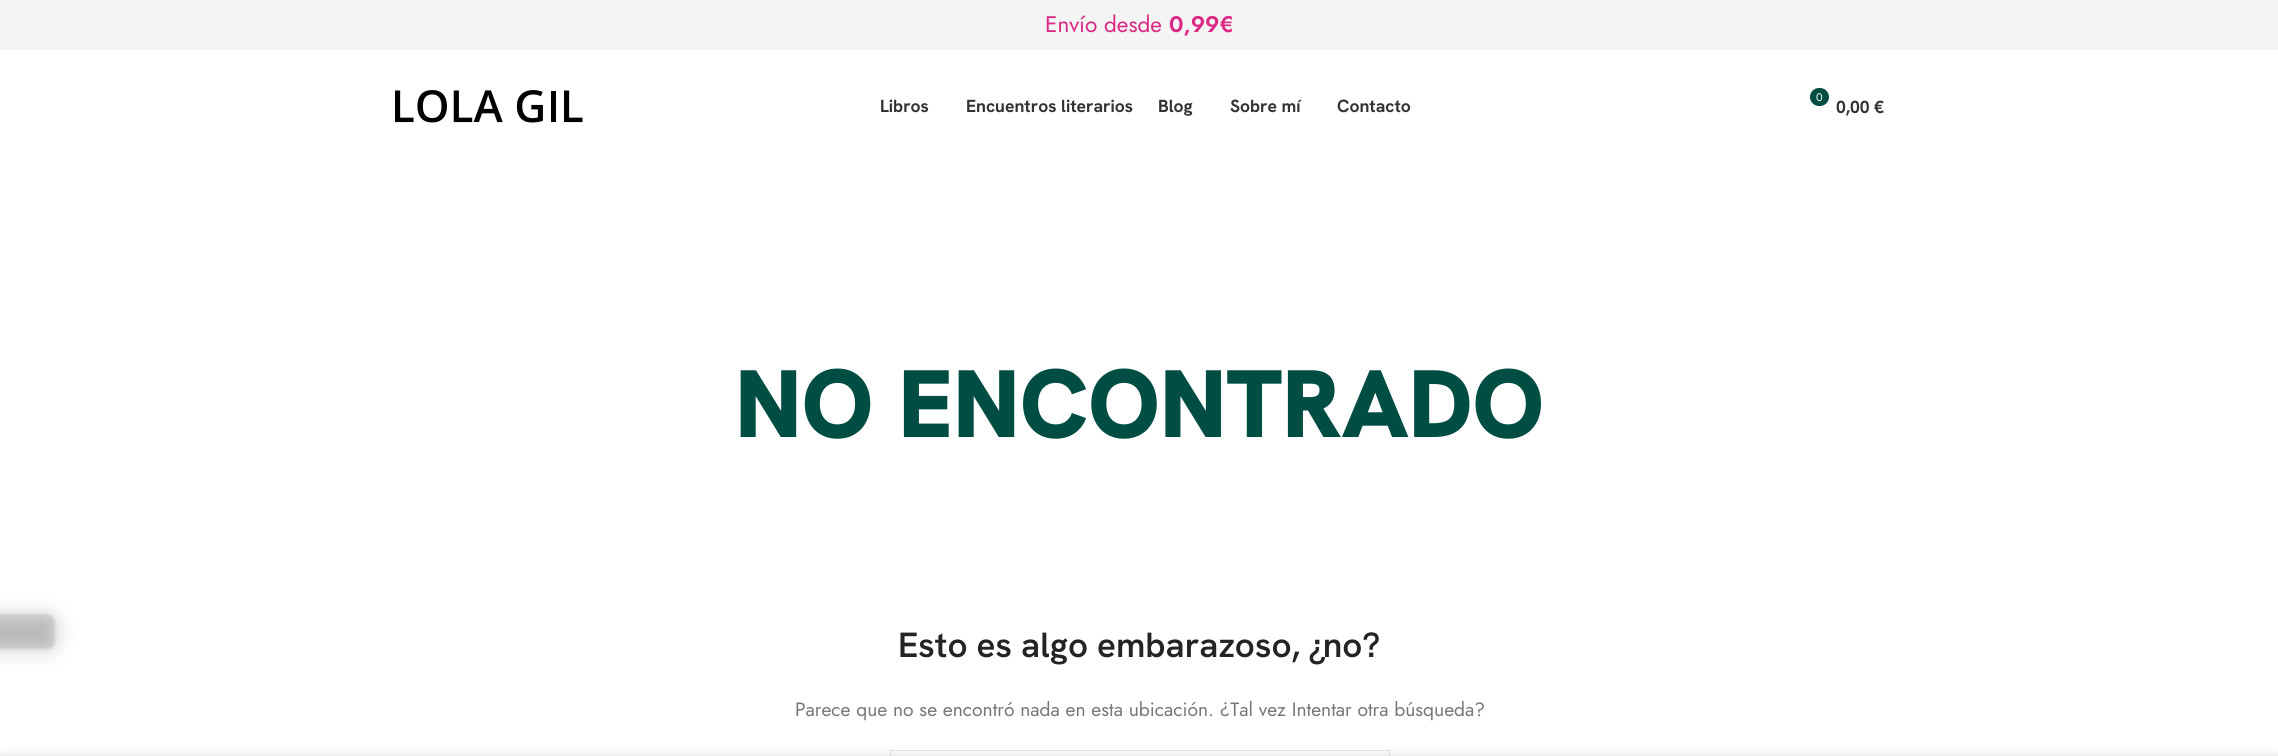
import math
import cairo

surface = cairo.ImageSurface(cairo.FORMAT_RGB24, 2278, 756)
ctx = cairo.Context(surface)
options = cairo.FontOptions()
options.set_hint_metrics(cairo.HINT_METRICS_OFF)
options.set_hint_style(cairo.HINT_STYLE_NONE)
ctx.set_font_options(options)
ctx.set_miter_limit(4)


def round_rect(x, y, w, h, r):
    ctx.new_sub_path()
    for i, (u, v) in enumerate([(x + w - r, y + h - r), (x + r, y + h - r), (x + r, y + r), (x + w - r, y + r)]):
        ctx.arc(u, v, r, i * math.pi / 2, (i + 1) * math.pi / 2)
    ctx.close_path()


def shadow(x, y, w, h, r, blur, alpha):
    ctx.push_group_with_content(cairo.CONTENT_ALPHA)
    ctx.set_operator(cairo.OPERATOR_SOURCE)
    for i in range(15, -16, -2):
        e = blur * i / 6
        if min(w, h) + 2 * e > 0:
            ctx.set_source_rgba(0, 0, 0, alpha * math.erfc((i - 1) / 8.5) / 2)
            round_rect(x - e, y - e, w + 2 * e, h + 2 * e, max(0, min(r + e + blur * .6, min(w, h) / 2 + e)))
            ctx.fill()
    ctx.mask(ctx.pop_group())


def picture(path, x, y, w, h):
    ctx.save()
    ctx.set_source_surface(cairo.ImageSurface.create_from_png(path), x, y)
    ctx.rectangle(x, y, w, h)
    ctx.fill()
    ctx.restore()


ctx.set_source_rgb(1, 1, 1)
ctx.paint()
ctx.set_source_rgb(0.957, 0.957, 0.957)
ctx.rectangle(0, 0, 2278, 50)
ctx.fill()
ctx.select_font_face("Jost")
ctx.set_font_size(22.5)
ctx.set_source_rgb(0.867, 0.153, 0.522)
ctx.move_to(1045, 32)
ctx.show_text("Envío desde")
ctx.select_font_face("Jost SemiBold")
ctx.move_to(1169, 32)
ctx.show_text("0,99€")
ctx.set_source_rgb(0, 0, 0)
shadow(-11, 614, 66, 35, 8, 1, 0.1)
shadow(-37, 615, 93, 35, 8, 9.5, 0.2)
picture("img1.png", 395, 90, 188, 33)
ctx.select_font_face("Hanken Grotesk", cairo.FONT_SLANT_NORMAL, cairo.FONT_WEIGHT_BOLD)
ctx.set_font_size(17.5)
ctx.set_source_rgb(0.2, 0.2, 0.2)
ctx.move_to(880, 112)
ctx.show_text("Libros")
ctx.move_to(966, 112)
ctx.show_text("Encuentros literarios")
ctx.move_to(1158, 112)
ctx.show_text("Blog")
ctx.move_to(1230, 112)
ctx.show_text("Sobre mí")
ctx.move_to(1337, 112)
ctx.show_text("Contacto")
ctx.set_source_rgb(0, 0.302, 0.263)
round_rect(1810, 88, 19, 18, 9)
ctx.fill()
ctx.select_font_face("Jost")
ctx.set_font_size(11)
ctx.set_source_rgb(1, 1, 1)
ctx.move_to(1816, 101)
ctx.show_text("0")
ctx.select_font_face("Hanken Grotesk", cairo.FONT_SLANT_NORMAL, cairo.FONT_WEIGHT_BOLD)
ctx.set_font_size(17.5)
ctx.set_source_rgb(0.2, 0.2, 0.2)
ctx.move_to(1836, 113)
ctx.show_text("0,00 €")
ctx.select_font_face("Hanken Grotesk Black")
ctx.set_font_size(95.75)
ctx.set_source_rgb(0, 0.302, 0.263)
ctx.move_to(735, 437)
ctx.show_text("NO ENCONTRADO")
ctx.select_font_face("Hanken Grotesk SemiBold")
ctx.set_font_size(35)
ctx.set_source_rgb(0.141, 0.141, 0.141)
ctx.move_to(898, 657)
ctx.show_text("Esto es algo embarazoso, ¿no?")
ctx.select_font_face("Jost")
ctx.set_font_size(19.25)
ctx.set_source_rgb(0.467, 0.467, 0.467)
ctx.move_to(795, 716)
ctx.show_text("Parece que no se encontró nada en esta ubicación. ¿Tal vez Intentar otra búsqueda?")
ctx.rectangle(890.5, 750.5, 499, 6)
ctx.set_source_rgb(0.902, 0.902, 0.902)
ctx.set_line_width(1)
ctx.stroke()
ctx.set_source_rgb(0, 0, 0)
shadow(0, 756, 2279, 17, 0, 5.5, 0.14)
surface.write_to_png("page.png")
